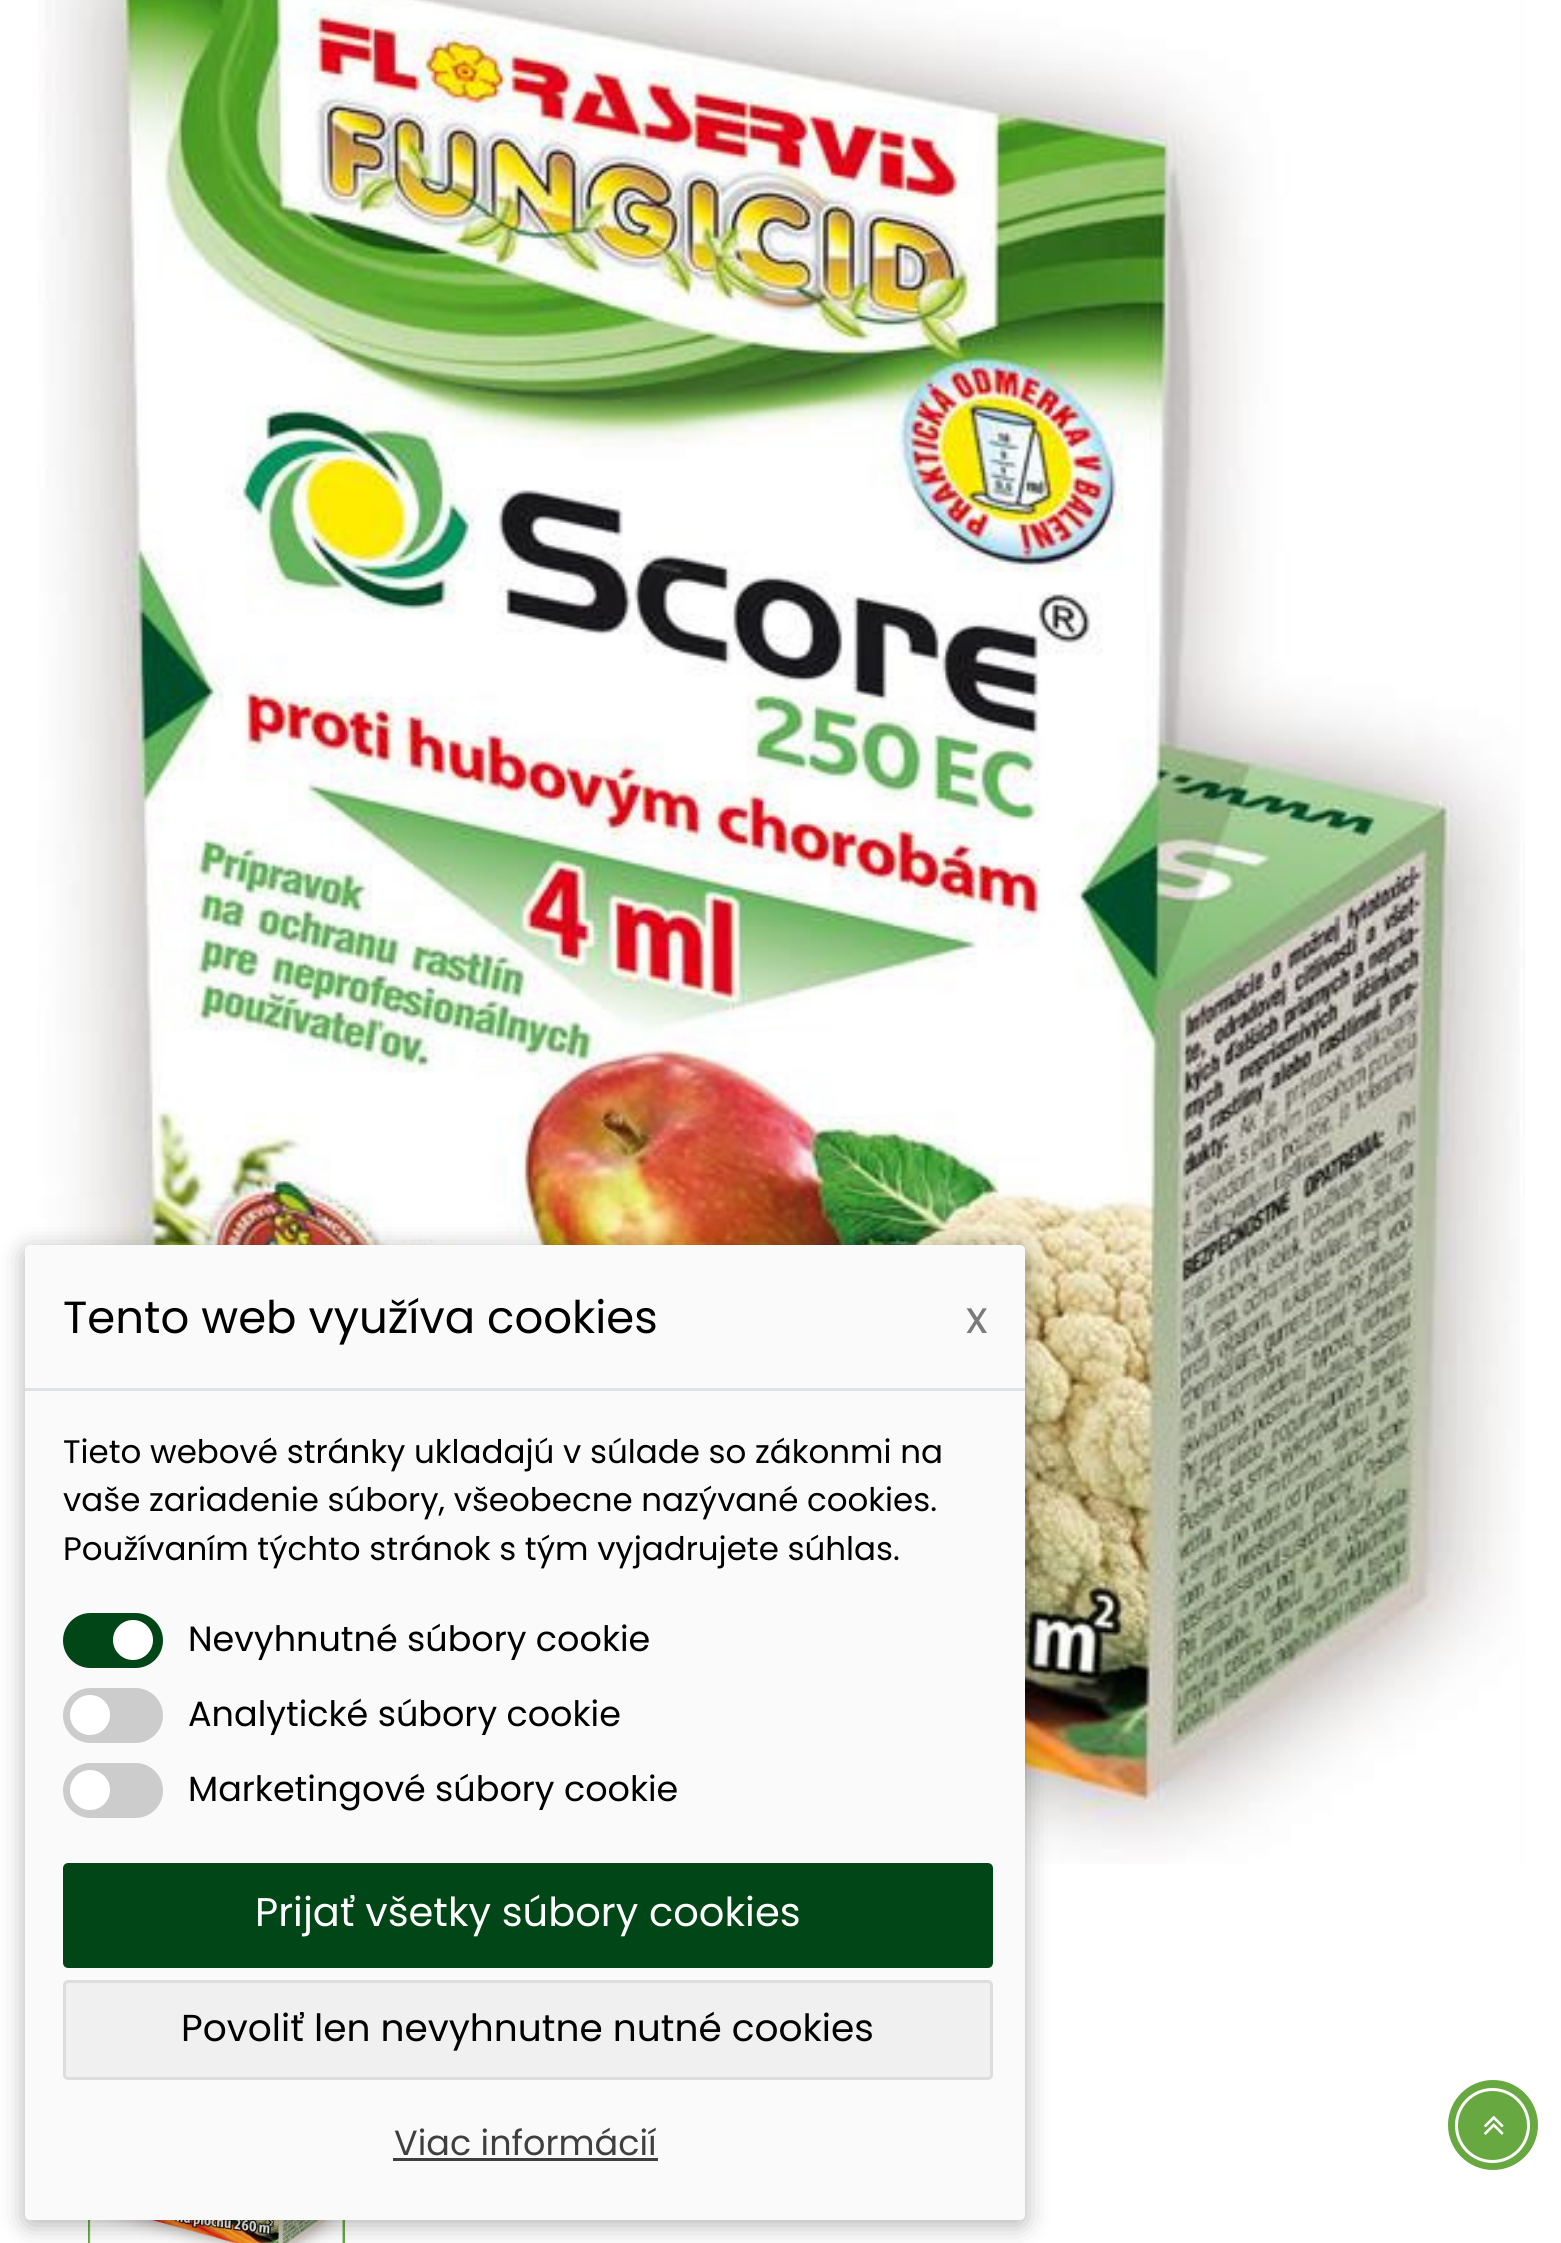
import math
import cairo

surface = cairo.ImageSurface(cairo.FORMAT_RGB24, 1561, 2243)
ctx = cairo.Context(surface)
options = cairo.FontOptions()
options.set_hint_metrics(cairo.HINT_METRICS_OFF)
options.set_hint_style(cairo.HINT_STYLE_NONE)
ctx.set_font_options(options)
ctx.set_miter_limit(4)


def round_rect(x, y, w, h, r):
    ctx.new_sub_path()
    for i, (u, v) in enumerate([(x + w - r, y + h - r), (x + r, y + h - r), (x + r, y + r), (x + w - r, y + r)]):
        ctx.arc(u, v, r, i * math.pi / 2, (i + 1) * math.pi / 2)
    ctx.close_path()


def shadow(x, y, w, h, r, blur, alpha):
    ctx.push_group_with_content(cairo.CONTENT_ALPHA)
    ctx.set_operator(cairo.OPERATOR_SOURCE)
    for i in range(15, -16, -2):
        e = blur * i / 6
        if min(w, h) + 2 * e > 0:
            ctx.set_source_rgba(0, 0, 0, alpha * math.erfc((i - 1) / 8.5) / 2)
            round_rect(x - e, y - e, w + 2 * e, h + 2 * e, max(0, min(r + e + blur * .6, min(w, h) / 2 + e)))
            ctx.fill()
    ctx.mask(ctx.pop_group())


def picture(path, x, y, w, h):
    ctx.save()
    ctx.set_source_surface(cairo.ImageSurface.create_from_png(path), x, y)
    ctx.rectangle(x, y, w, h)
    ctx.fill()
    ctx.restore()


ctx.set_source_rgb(1, 1, 1)
ctx.paint()
picture("img1.png", 38, 0, 1487, 1864)
ctx.rectangle(89.5, 1924.5, 254, 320)
ctx.set_source_rgb(0.404, 0.659, 0.251)
ctx.set_line_width(3)
ctx.stroke()
picture("img2.png", 89, 2220, 254, 23)
ctx.arc(1493, 2125, 45, 0, 2 * math.pi)
ctx.fill()
ctx.arc(1492.5, 2125.5, 36, 0, 2 * math.pi)
ctx.set_source_rgb(1, 1, 1)
ctx.stroke()
picture("img3.png", 1484, 2115, 20, 20)
ctx.set_source_rgb(0, 0, 0)
shadow(25, 1250, 1000, 975, 5, 12.5, 0.3)
ctx.set_source_rgb(0.98, 0.98, 0.98)
round_rect(25, 1245, 1000, 975, 5)
ctx.fill()
ctx.set_source_rgb(0.871, 0.886, 0.902)
ctx.rectangle(25, 1388, 1000, 3)
ctx.fill()
ctx.select_font_face("Poppins")
ctx.set_font_size(45)
ctx.set_source_rgb(0, 0, 0)
ctx.move_to(63, 1333)
ctx.show_text("Tento web využíva cookies")
ctx.set_source_rgb(0.478, 0.478, 0.478)
ctx.move_to(966, 1333)
ctx.show_text("x")
ctx.set_font_size(32.5)
ctx.set_source_rgb(0, 0, 0)
ctx.move_to(63, 1463)
ctx.show_text("Tieto webové stránky ukladajú v súlade so zákonmi na")
ctx.move_to(63, 1511)
ctx.show_text("vaše zariadenie súbory, všeobecne nazývané cookies.")
ctx.move_to(63, 1560)
ctx.show_text("Používaním týchto stránok s tým vyjadrujete súhlas.")
ctx.set_source_rgb(0, 0.275, 0.086)
round_rect(63, 1613, 100, 55, 27.5)
ctx.fill()
ctx.set_source_rgb(1, 1, 1)
ctx.arc(133, 1640, 20, 0, 2 * math.pi)
ctx.fill()
ctx.set_font_size(35)
ctx.set_source_rgb(0, 0, 0)
ctx.move_to(188, 1651)
ctx.show_text("Nevyhnutné súbory cookie")
ctx.set_source_rgb(0.8, 0.8, 0.8)
round_rect(63, 1688, 100, 55, 27.5)
ctx.fill()
ctx.set_source_rgb(1, 1, 1)
ctx.arc(90, 1715, 20, 0, 2 * math.pi)
ctx.fill()
ctx.set_source_rgb(0, 0, 0)
ctx.move_to(188, 1726)
ctx.show_text("Analytické súbory cookie")
ctx.set_source_rgb(0.8, 0.8, 0.8)
round_rect(63, 1763, 100, 55, 27.5)
ctx.fill()
ctx.set_source_rgb(1, 1, 1)
ctx.arc(90, 1790, 20, 0, 2 * math.pi)
ctx.fill()
ctx.set_source_rgb(0, 0, 0)
ctx.move_to(188, 1801)
ctx.show_text("Marketingové súbory cookie")
ctx.set_source_rgb(0, 0.275, 0.086)
round_rect(64.5, 1864.5, 927, 102, 3.5)
ctx.fill_preserve()
ctx.stroke()
ctx.set_font_size(40)
ctx.set_source_rgb(1, 1, 1)
ctx.move_to(255, 1926)
ctx.show_text("Prijať všetky súbory cookies")
ctx.set_source_rgb(0.941, 0.941, 0.941)
round_rect(64.5, 1981.5, 927, 97, 3.5)
ctx.fill_preserve()
ctx.set_source_rgb(0.867, 0.867, 0.867)
ctx.stroke()
ctx.set_font_size(37.5)
ctx.set_source_rgb(0, 0, 0)
ctx.move_to(181, 2041)
ctx.show_text("Povoliť len nevyhnutne nutné cookies")
ctx.set_font_size(35)
ctx.set_source_rgb(0.247, 0.247, 0.247)
ctx.move_to(394, 2155)
ctx.show_text("Viac informácií")
ctx.rectangle(393, 2158, 265, 3)
ctx.fill()
surface.write_to_png("page.png")
